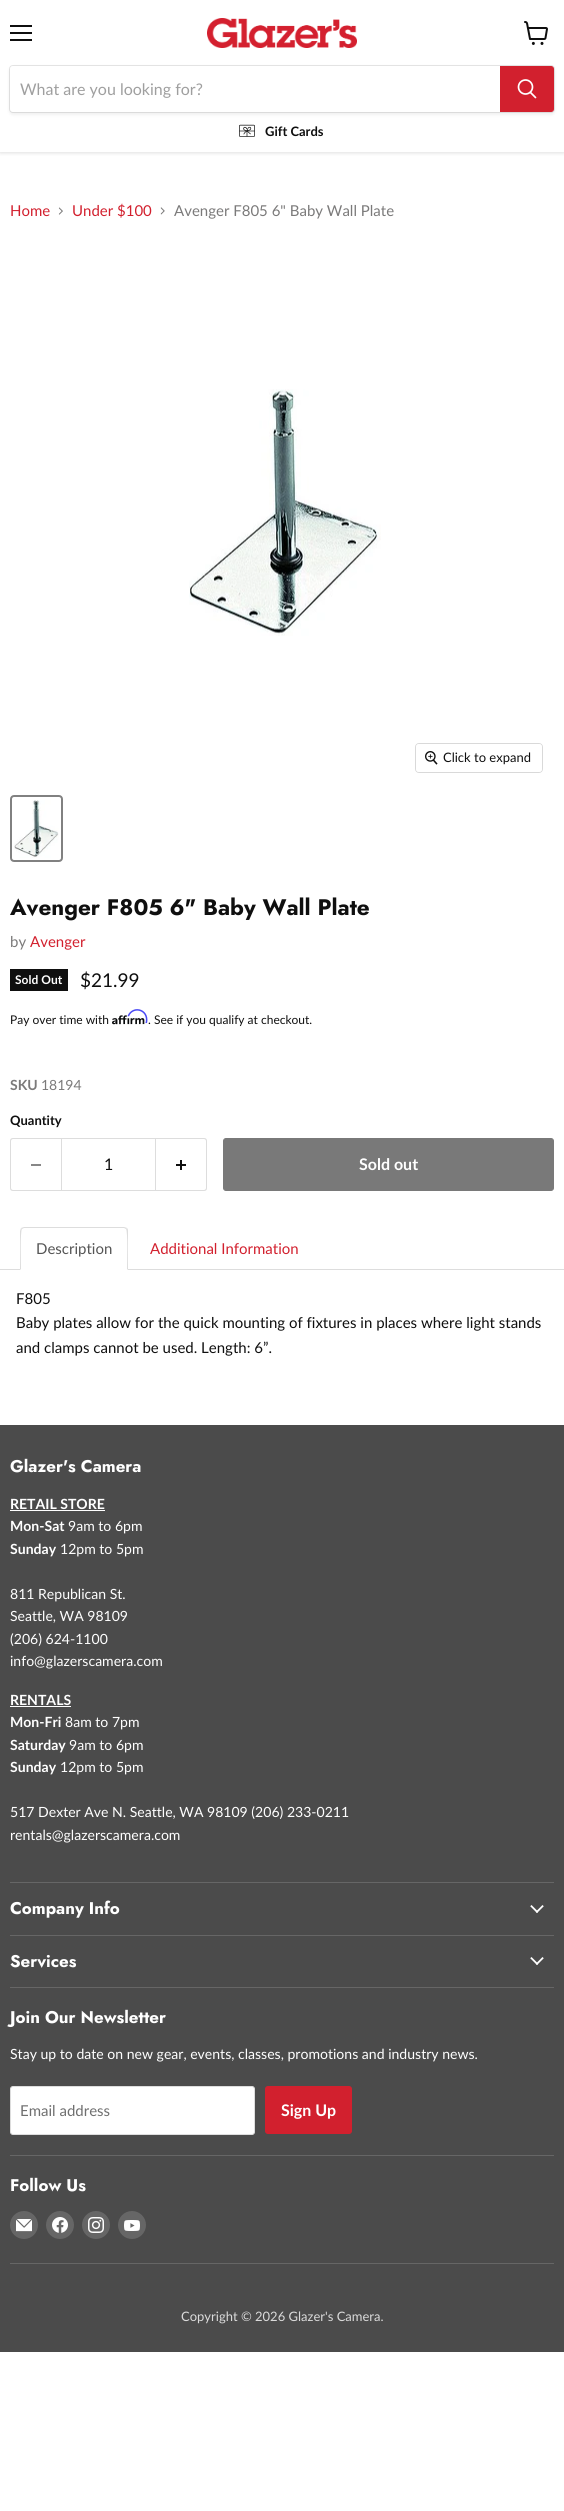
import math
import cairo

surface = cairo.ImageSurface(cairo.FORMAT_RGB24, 564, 2511)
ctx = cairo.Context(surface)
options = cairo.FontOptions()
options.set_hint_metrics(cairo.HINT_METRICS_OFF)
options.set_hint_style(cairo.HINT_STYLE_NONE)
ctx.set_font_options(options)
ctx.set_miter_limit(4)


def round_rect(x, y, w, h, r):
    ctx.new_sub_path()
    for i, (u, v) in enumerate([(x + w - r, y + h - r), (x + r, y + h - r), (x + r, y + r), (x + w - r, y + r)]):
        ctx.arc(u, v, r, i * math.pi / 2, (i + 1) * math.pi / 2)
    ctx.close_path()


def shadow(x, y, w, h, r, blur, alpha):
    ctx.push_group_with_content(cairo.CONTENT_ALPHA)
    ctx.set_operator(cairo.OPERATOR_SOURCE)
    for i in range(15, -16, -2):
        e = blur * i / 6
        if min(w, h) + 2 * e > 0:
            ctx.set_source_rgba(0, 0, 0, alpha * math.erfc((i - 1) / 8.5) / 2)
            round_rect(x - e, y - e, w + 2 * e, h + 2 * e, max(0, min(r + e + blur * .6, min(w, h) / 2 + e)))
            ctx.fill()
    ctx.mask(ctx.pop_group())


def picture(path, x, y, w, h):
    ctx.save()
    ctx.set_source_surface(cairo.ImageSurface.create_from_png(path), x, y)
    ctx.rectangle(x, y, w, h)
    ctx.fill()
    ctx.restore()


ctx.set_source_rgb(1, 1, 1)
ctx.paint()
ctx.save()
ctx.rectangle(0, 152, 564, 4)
ctx.clip()
ctx.set_source_rgb(0.502, 0.502, 0.502)
shadow(0, 1, 564, 152, 0, 2, 0.25)
ctx.restore()
ctx.set_source_rgb(0.059, 0.059, 0.059)
ctx.rectangle(10, 25, 22, 2)
ctx.fill()
ctx.rectangle(10, 32, 22, 2)
ctx.fill()
ctx.rectangle(10, 39, 22, 2)
ctx.fill()
picture("img1.png", 524, 21, 24, 24)
picture("img2.png", 207, 18, 150, 30)
ctx.set_source_rgb(0.502, 0.502, 0.502)
shadow(9, 67, 546, 48, 4, 1.5, 0.11)
round_rect(9.5, 65.5, 545, 47, 3.5)
ctx.set_source_rgba(0.502, 0.502, 0.502, 0.2)
ctx.set_line_width(1)
ctx.stroke()
ctx.set_source_rgb(1, 1, 1)
ctx.new_path()
ctx.move_to(13, 66)
ctx.line_to(500, 66)
ctx.line_to(500, 112)
ctx.line_to(13, 112)
ctx.curve_to(11.5, 112, 10, 110.5, 10, 109)
ctx.line_to(10, 69)
ctx.curve_to(10, 67.5, 11.5, 66, 13, 66)
ctx.close_path()
ctx.fill()
ctx.select_font_face("Lato")
ctx.set_font_size(16)
ctx.set_source_rgb(0.624, 0.624, 0.624)
ctx.move_to(20, 95)
ctx.show_text("What are you looking for?")
ctx.set_source_rgb(0.824, 0.125, 0.18)
ctx.new_path()
ctx.move_to(500.5, 66.5)
ctx.line_to(551, 66.5)
ctx.curve_to(552.5, 66.5, 553.5, 67.5, 553.5, 69)
ctx.line_to(553.5, 109)
ctx.curve_to(553.5, 110.5, 552.5, 111.5, 551, 111.5)
ctx.line_to(500.5, 111.5)
ctx.close_path()
ctx.fill_preserve()
ctx.stroke()
ctx.new_path()
ctx.move_to(535.5, 97.5)
ctx.line_to(530.5, 92.5)
ctx.set_source_rgb(1, 1, 1)
ctx.set_line_width(1.7)
ctx.set_line_cap(cairo.LINE_CAP_ROUND)
ctx.stroke()
ctx.arc(525.5, 87, 7, 0, 2 * math.pi)
ctx.set_line_cap(cairo.LINE_CAP_BUTT)
ctx.stroke()
picture("img3.png", 239, 124, 16, 13)
ctx.select_font_face("Lato", cairo.FONT_SLANT_NORMAL, cairo.FONT_WEIGHT_BOLD)
ctx.set_font_size(13)
ctx.set_source_rgb(0.059, 0.059, 0.059)
ctx.move_to(265, 136)
ctx.show_text("Gift Cards")
ctx.select_font_face("Lato")
ctx.set_font_size(15)
ctx.set_source_rgb(0.824, 0.125, 0.18)
ctx.move_to(10, 216)
ctx.show_text("Home")
picture("img4.png", 58, 207, 5, 8)
ctx.move_to(72, 216)
ctx.show_text("Under $100")
picture("img5.png", 160, 207, 5, 8)
ctx.set_source_rgb(0.482, 0.478, 0.478)
ctx.move_to(174, 216)
ctx.show_text("Avenger F805 6\" Baby Wall Plate")
picture("img6.png", 189, 389, 192, 247)
round_rect(415.5, 743.5, 127, 29, 3.5)
ctx.set_source_rgb(0.851, 0.851, 0.851)
ctx.set_line_width(1)
ctx.stroke()
ctx.set_source_rgba(1, 1, 1, 0.9)
round_rect(416, 744, 126, 28, 3)
ctx.fill()
picture("img7.png", 425, 751, 13, 14)
ctx.set_font_size(13)
ctx.set_source_rgb(0.059, 0.059, 0.059)
ctx.move_to(443, 762)
ctx.show_text("Click to expand")
round_rect(11, 796, 51, 65, 3)
ctx.set_source_rgb(0.506, 0.506, 0.506)
ctx.set_line_width(2)
ctx.stroke()
picture("img8.png", 14, 800, 45, 58)
ctx.select_font_face("Jost", cairo.FONT_SLANT_NORMAL, cairo.FONT_WEIGHT_BOLD)
ctx.set_font_size(22.5)
ctx.set_source_rgb(0.059, 0.059, 0.059)
ctx.move_to(10, 915)
ctx.show_text("Avenger F805 6\" Baby Wall Plate")
ctx.select_font_face("Lato")
ctx.set_font_size(15)
ctx.set_source_rgb(0.482, 0.478, 0.478)
ctx.move_to(10, 947)
ctx.show_text("by")
ctx.set_source_rgb(0.824, 0.125, 0.18)
ctx.move_to(30, 947)
ctx.show_text("Avenger")
ctx.set_source_rgb(0.059, 0.059, 0.059)
ctx.rectangle(10, 969, 58, 22)
ctx.fill()
ctx.select_font_face("Lato", cairo.FONT_SLANT_NORMAL, cairo.FONT_WEIGHT_BOLD)
ctx.set_font_size(12)
ctx.set_source_rgb(1, 1, 1)
ctx.move_to(15, 984)
ctx.show_text("Sold Out")
ctx.select_font_face("Lato")
ctx.set_font_size(19)
ctx.set_source_rgb(0.059, 0.059, 0.059)
ctx.move_to(80, 987)
ctx.show_text("$21.99")
ctx.set_font_size(12)
ctx.move_to(10, 1024)
ctx.show_text("Pay over time with")
picture("img10.png", 112, 1015, 33, 10)
picture("img9.png", 127, 1009, 21, 15)
ctx.move_to(148, 1024)
ctx.show_text(". See if you qualify at checkout.")
ctx.select_font_face("Lato", cairo.FONT_SLANT_NORMAL, cairo.FONT_WEIGHT_BOLD)
ctx.set_font_size(14)
ctx.set_source_rgb(0.482, 0.478, 0.478)
ctx.move_to(10, 1090)
ctx.show_text("SKU")
ctx.select_font_face("Lato")
ctx.move_to(41, 1090)
ctx.show_text("18194")
ctx.select_font_face("Lato", cairo.FONT_SLANT_NORMAL, cairo.FONT_WEIGHT_BOLD)
ctx.set_font_size(13)
ctx.set_source_rgb(0.059, 0.059, 0.059)
ctx.move_to(10, 1125)
ctx.show_text("Quantity")
ctx.set_source_rgb(0.867, 0.867, 0.867)
ctx.set_fill_rule(cairo.FILL_RULE_EVEN_ODD)
ctx.new_path()
ctx.move_to(13, 1138)
ctx.line_to(61, 1138)
ctx.line_to(61, 1191)
ctx.line_to(13, 1191)
ctx.curve_to(11, 1191, 10, 1190, 10, 1188)
ctx.line_to(10, 1141)
ctx.curve_to(10, 1139, 11, 1138, 13, 1138)
ctx.close_path()
ctx.move_to(13, 1139)
ctx.line_to(61, 1139)
ctx.line_to(61, 1190)
ctx.line_to(13, 1190)
ctx.curve_to(12, 1190, 11, 1189, 11, 1188)
ctx.line_to(11, 1141)
ctx.curve_to(11, 1140, 12, 1139, 13, 1139)
ctx.close_path()
ctx.fill()
ctx.set_source_rgb(0.529, 0.529, 0.529)
ctx.rectangle(31, 1164, 10, 2)
ctx.fill()
ctx.rectangle(61.5, 1138.5, 94, 52)
ctx.set_source_rgb(0.867, 0.867, 0.867)
ctx.set_line_width(1)
ctx.stroke()
ctx.select_font_face("Lato")
ctx.set_font_size(16)
ctx.set_source_rgb(0.059, 0.059, 0.059)
ctx.move_to(104, 1170)
ctx.show_text("1")
ctx.set_source_rgb(0.867, 0.867, 0.867)
ctx.new_path()
ctx.move_to(156, 1138)
ctx.line_to(204, 1138)
ctx.curve_to(206, 1138, 207, 1139, 207, 1141)
ctx.line_to(207, 1188)
ctx.curve_to(207, 1190, 206, 1191, 204, 1191)
ctx.line_to(156, 1191)
ctx.close_path()
ctx.move_to(156, 1139)
ctx.line_to(204, 1139)
ctx.curve_to(205, 1139, 206, 1140, 206, 1141)
ctx.line_to(206, 1188)
ctx.curve_to(206, 1189, 205, 1190, 204, 1190)
ctx.line_to(156, 1190)
ctx.close_path()
ctx.fill()
picture("img11.png", 176, 1160, 10, 10)
ctx.set_source_rgb(0.475, 0.475, 0.475)
round_rect(223.5, 1138.5, 330, 52, 2.5)
ctx.fill_preserve()
ctx.stroke()
ctx.select_font_face("Lato", cairo.FONT_SLANT_NORMAL, cairo.FONT_WEIGHT_BOLD)
ctx.set_source_rgb(1, 1, 1)
ctx.move_to(359, 1170)
ctx.show_text("Sold out")
ctx.set_source_rgb(0.867, 0.867, 0.867)
ctx.rectangle(0, 1269, 564, 1)
ctx.fill()
ctx.set_source_rgb(1, 1, 1)
ctx.new_path()
ctx.move_to(24, 1227)
ctx.line_to(124, 1227)
ctx.curve_to(126, 1227, 128, 1229, 128, 1231)
ctx.line_to(128, 1270)
ctx.line_to(20, 1270)
ctx.line_to(20, 1231)
ctx.curve_to(20, 1229, 22, 1227, 24, 1227)
ctx.close_path()
ctx.fill()
ctx.set_source_rgb(0.867, 0.867, 0.867)
ctx.set_fill_rule(cairo.FILL_RULE_WINDING)
ctx.new_path()
ctx.move_to(24, 1227)
ctx.line_to(21, 1228)
ctx.line_to(22, 1229)
ctx.line_to(24, 1228)
ctx.line_to(124, 1228)
ctx.line_to(126, 1229)
ctx.line_to(127, 1228)
ctx.line_to(124, 1227)
ctx.close_path()
ctx.fill()
ctx.new_path()
ctx.move_to(128, 1270)
ctx.line_to(128, 1231)
ctx.curve_to(128, 1230, 128, 1229, 127, 1228)
ctx.line_to(126, 1229)
ctx.curve_to(128, 1231, 127, 1264, 127, 1269)
ctx.close_path()
ctx.fill()
ctx.new_path()
ctx.move_to(20, 1270)
ctx.line_to(21, 1269)
ctx.curve_to(21, 1264, 20, 1231, 22, 1229)
ctx.line_to(21, 1228)
ctx.line_to(20, 1231)
ctx.close_path()
ctx.fill()
ctx.select_font_face("Lato")
ctx.set_font_size(15)
ctx.set_source_rgb(0.333, 0.333, 0.333)
ctx.move_to(36, 1254)
ctx.show_text("Description")
ctx.set_source_rgb(0.824, 0.125, 0.18)
ctx.move_to(150, 1254)
ctx.show_text("Additional Information")
ctx.set_source_rgb(0.059, 0.059, 0.059)
ctx.move_to(16, 1304)
ctx.show_text("F805")
ctx.move_to(16, 1328)
ctx.show_text("Baby plates allow for the quick mounting of fixtures in places where light stands")
ctx.move_to(16, 1353)
ctx.show_text("and clamps cannot be used. Length: 6”.")
ctx.set_source_rgb(0.294, 0.294, 0.294)
ctx.rectangle(0, 1425, 564, 927)
ctx.fill()
ctx.set_source_rgb(0.4, 0.4, 0.4)
ctx.rectangle(10, 1882, 544, 1)
ctx.fill()
ctx.select_font_face("Jost", cairo.FONT_SLANT_NORMAL, cairo.FONT_WEIGHT_BOLD)
ctx.set_font_size(16.9)
ctx.set_source_rgb(1, 1, 1)
ctx.move_to(10, 1472)
ctx.show_text("Glazer's Camera")
ctx.select_font_face("Lato", cairo.FONT_SLANT_NORMAL, cairo.FONT_WEIGHT_BOLD)
ctx.set_font_size(14.05)
ctx.move_to(10, 1509)
ctx.show_text("RETAIL STORE")
ctx.rectangle(10, 1510, 95, 1)
ctx.fill()
ctx.move_to(10, 1531)
ctx.show_text("Mon-Sat")
ctx.select_font_face("Lato")
ctx.move_to(68, 1531)
ctx.show_text("9am to 6pm")
ctx.select_font_face("Lato", cairo.FONT_SLANT_NORMAL, cairo.FONT_WEIGHT_BOLD)
ctx.move_to(10, 1554)
ctx.show_text("Sunday")
ctx.select_font_face("Lato")
ctx.move_to(60, 1554)
ctx.show_text("12pm to 5pm")
ctx.move_to(10, 1599)
ctx.show_text("811 Republican St.")
ctx.move_to(10, 1621)
ctx.show_text("Seattle, WA 98109")
ctx.move_to(10, 1644)
ctx.show_text("(206) 624-1100")
ctx.move_to(10, 1666)
ctx.show_text("info@glazerscamera.com")
ctx.select_font_face("Lato", cairo.FONT_SLANT_NORMAL, cairo.FONT_WEIGHT_BOLD)
ctx.move_to(10, 1705)
ctx.show_text("RENTALS")
ctx.rectangle(10, 1706, 61, 1)
ctx.fill()
ctx.move_to(10, 1727)
ctx.show_text("Mon-Fri")
ctx.select_font_face("Lato")
ctx.move_to(65, 1727)
ctx.show_text("8am to 7pm")
ctx.select_font_face("Lato", cairo.FONT_SLANT_NORMAL, cairo.FONT_WEIGHT_BOLD)
ctx.move_to(10, 1750)
ctx.show_text("Saturday")
ctx.select_font_face("Lato")
ctx.move_to(69, 1750)
ctx.show_text("9am to 6pm")
ctx.select_font_face("Lato", cairo.FONT_SLANT_NORMAL, cairo.FONT_WEIGHT_BOLD)
ctx.move_to(10, 1772)
ctx.show_text("Sunday")
ctx.select_font_face("Lato")
ctx.move_to(60, 1772)
ctx.show_text("12pm to 5pm")
ctx.move_to(10, 1817)
ctx.show_text("517 Dexter Ave N. Seattle, WA 98109 (206) 233-0211")
ctx.move_to(10, 1840)
ctx.show_text("rentals@glazerscamera.com")
ctx.set_source_rgb(0.4, 0.4, 0.4)
ctx.rectangle(10, 1935, 544, 1)
ctx.fill()
ctx.select_font_face("Jost", cairo.FONT_SLANT_NORMAL, cairo.FONT_WEIGHT_BOLD)
ctx.set_font_size(16.9)
ctx.set_source_rgb(1, 1, 1)
ctx.move_to(10, 1914)
ctx.show_text("Company Info")
picture("img12.png", 530, 1905, 14, 8)
ctx.set_source_rgb(0.4, 0.4, 0.4)
ctx.rectangle(10, 1987, 544, 1)
ctx.fill()
ctx.set_source_rgb(1, 1, 1)
ctx.move_to(10, 1967)
ctx.show_text("Services")
picture("img12.png", 530, 1957, 14, 8)
ctx.set_source_rgb(0.4, 0.4, 0.4)
ctx.rectangle(10, 2155, 544, 1)
ctx.fill()
ctx.set_source_rgb(1, 1, 1)
ctx.move_to(10, 2023)
ctx.show_text("Join Our Newsletter")
ctx.select_font_face("Lato")
ctx.set_font_size(14.05)
ctx.move_to(10, 2059)
ctx.show_text("Stay up to date on new gear, events, classes, promotions and industry news.")
round_rect(10.5, 2086.5, 244, 48, 2.5)
ctx.fill_preserve()
ctx.set_source_rgb(0.867, 0.867, 0.867)
ctx.stroke()
ctx.set_font_size(15)
ctx.set_source_rgb(0.435, 0.435, 0.435)
ctx.move_to(20, 2116)
ctx.show_text("Email address")
ctx.set_source_rgb(0.824, 0.125, 0.18)
round_rect(265.5, 2086.5, 86, 47, 2.5)
ctx.fill_preserve()
ctx.stroke()
ctx.select_font_face("Lato", cairo.FONT_SLANT_NORMAL, cairo.FONT_WEIGHT_BOLD)
ctx.set_font_size(16)
ctx.set_source_rgb(1, 1, 1)
ctx.move_to(281, 2116)
ctx.show_text("Sign Up")
ctx.set_source_rgb(0.4, 0.4, 0.4)
ctx.rectangle(10, 2263, 544, 1)
ctx.fill()
ctx.select_font_face("Jost", cairo.FONT_SLANT_NORMAL, cairo.FONT_WEIGHT_BOLD)
ctx.set_font_size(16.9)
ctx.set_source_rgb(1, 1, 1)
ctx.move_to(10, 2191)
ctx.show_text("Follow Us")
ctx.set_source_rgb(0.4, 0.4, 0.4)
ctx.new_path()
ctx.arc(24, 2225, 14, 0, 2 * math.pi)
ctx.fill()
picture("img13.png", 16, 2219, 16, 13)
ctx.arc(60, 2225, 14, 0, 2 * math.pi)
ctx.fill()
picture("img14.png", 52, 2217, 16, 16)
ctx.arc(96, 2225, 14, 0, 2 * math.pi)
ctx.fill()
picture("img15.png", 88, 2217, 16, 16)
ctx.arc(132, 2225, 14, 0, 2 * math.pi)
ctx.fill()
picture("img16.png", 124, 2220, 16, 11)
ctx.select_font_face("Lato")
ctx.set_font_size(13)
ctx.set_source_rgb(0.859, 0.859, 0.859)
ctx.move_to(181, 2321)
ctx.show_text("Copyright © 2026 Glazer's Camera.")
surface.write_to_png("page.png")
